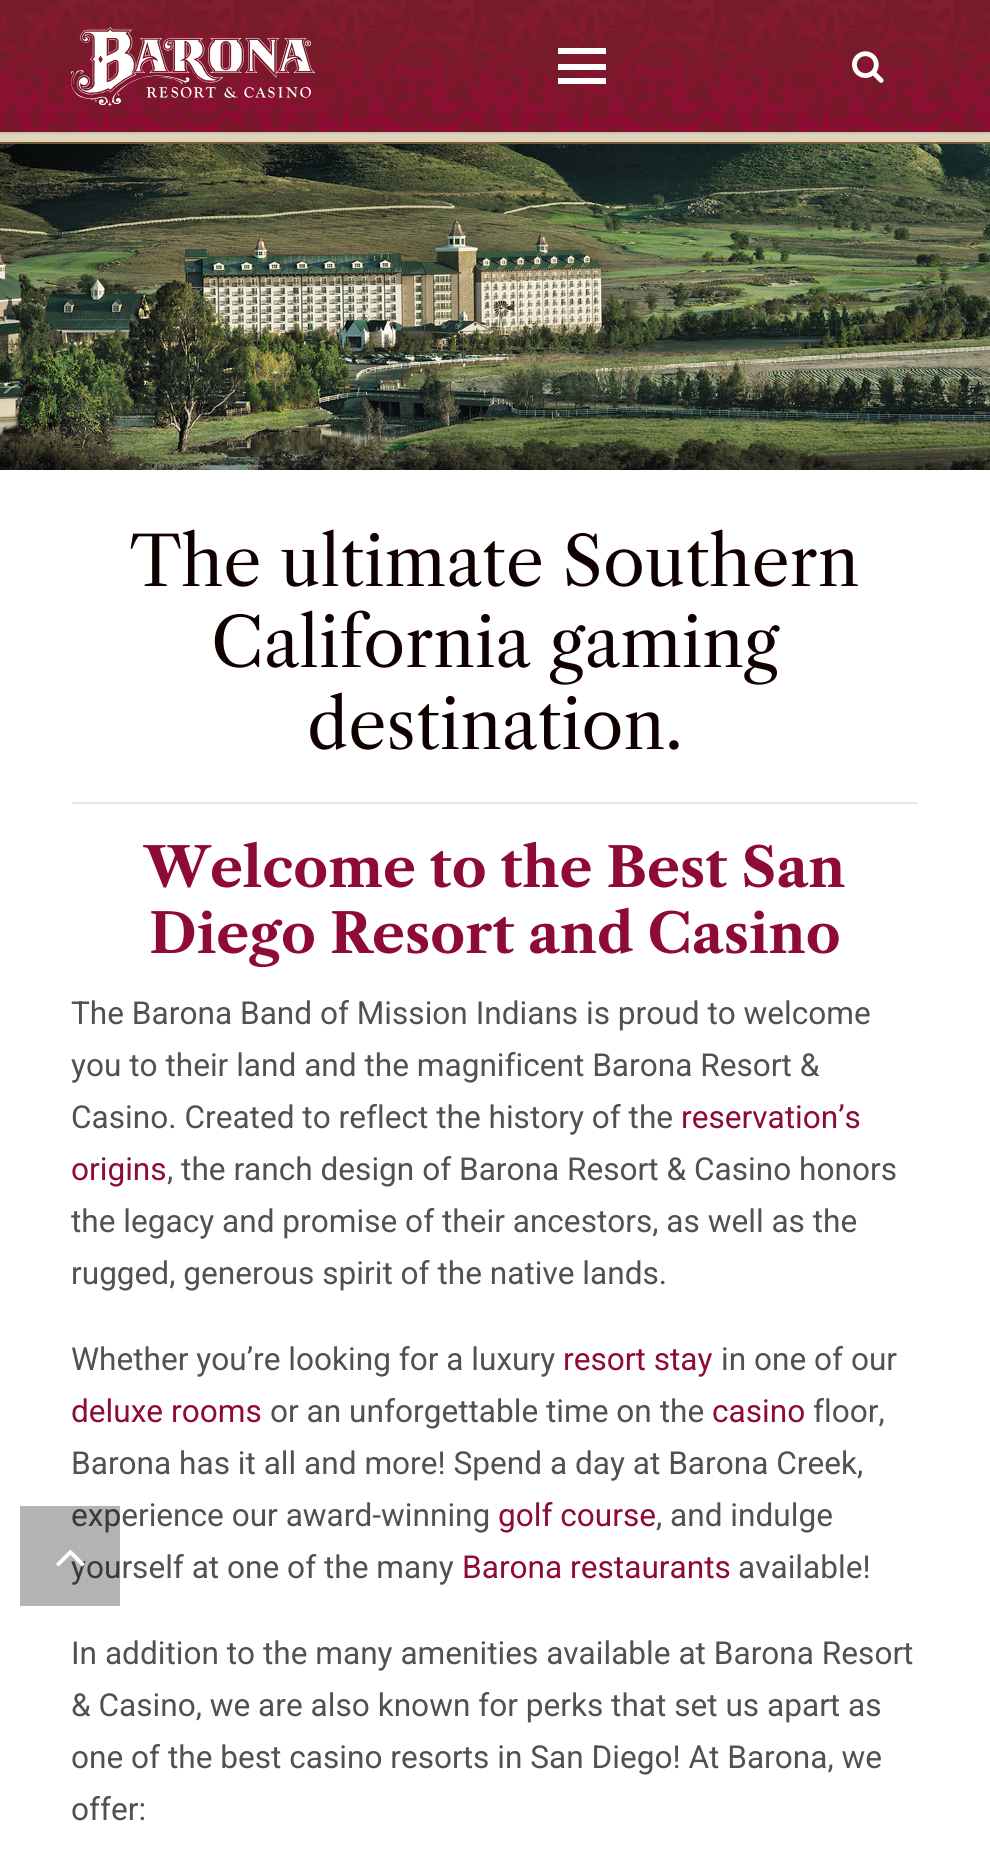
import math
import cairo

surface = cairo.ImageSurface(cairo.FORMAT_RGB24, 990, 1875)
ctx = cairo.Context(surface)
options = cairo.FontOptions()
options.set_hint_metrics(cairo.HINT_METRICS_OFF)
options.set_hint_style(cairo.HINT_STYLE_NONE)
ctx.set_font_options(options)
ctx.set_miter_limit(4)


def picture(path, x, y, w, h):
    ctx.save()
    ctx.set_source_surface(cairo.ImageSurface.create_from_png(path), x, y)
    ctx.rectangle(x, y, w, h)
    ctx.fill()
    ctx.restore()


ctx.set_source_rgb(1, 1, 1)
ctx.paint()
ctx.select_font_face("Roboto")
ctx.set_font_size(31.6)
ctx.set_source_rgb(0.318, 0.318, 0.318)
ctx.move_to(71, 1526)
ctx.show_text("experience our award-winning")
ctx.move_to(71, 1578)
ctx.show_text("yourself at one of the many")
ctx.set_source_rgba(0, 0, 0, 0.3)
ctx.rectangle(20, 1506, 100, 100)
ctx.fill()
picture("img1.png", 56, 1549, 29, 18)
picture("img5.png", 0, 142, 990, 328)
ctx.set_source_rgba(0.502, 0.38, 0.227, 0.88)
ctx.rectangle(0, 142, 990, 2)
ctx.fill()
gradient = cairo.LinearGradient(495, 132, 495, 0)
gradient.add_color_stop_rgba(0, 0.557, 0.043, 0.208, 1)
gradient.add_color_stop_rgba(1, 0.502, 0.118, 0.173, 1)
ctx.set_source(gradient)
ctx.rectangle(0, 0, 990, 132)
ctx.fill()
ctx.set_source_rgb(0.871, 0.831, 0.733)
ctx.rectangle(0, 134, 990, 8)
ctx.fill()
ctx.set_source_rgb(0.8, 0.765, 0.675)
ctx.rectangle(0, 132, 990, 2)
ctx.fill()
picture("img2.png", 0, 0, 990, 132)
picture("img3.png", 70, 27, 245, 80)
ctx.set_source_rgb(1, 1, 1)
ctx.rectangle(558, 64, 48, 6)
ctx.fill()
ctx.rectangle(558, 48, 48, 6)
ctx.fill()
ctx.rectangle(558, 78, 48, 6)
ctx.fill()
picture("img4.png", 852, 51, 32, 32)
ctx.select_font_face("Libre Caslon Text")
ctx.set_font_size(68)
ctx.set_source_rgb(0.067, 0, 0)
ctx.move_to(130, 586)
ctx.show_text("The ultimate Southern")
ctx.move_to(211, 667)
ctx.show_text("California gaming")
ctx.move_to(307, 749)
ctx.show_text("destination.")
ctx.set_source_rgb(0.91, 0.91, 0.91)
ctx.rectangle(72, 802, 846, 2)
ctx.fill()
ctx.select_font_face("Libre Caslon Text", cairo.FONT_SLANT_NORMAL, cairo.FONT_WEIGHT_BOLD)
ctx.set_font_size(54.4)
ctx.set_source_rgb(0.557, 0.043, 0.208)
ctx.move_to(144, 887)
ctx.show_text("Welcome to the Best San")
ctx.move_to(149, 953)
ctx.show_text("Diego Resort and Casino")
ctx.select_font_face("Roboto")
ctx.set_font_size(31.6)
ctx.set_source_rgb(0.318, 0.318, 0.318)
ctx.move_to(71, 1024)
ctx.show_text("The Barona Band of Mission Indians is proud to welcome")
ctx.move_to(71, 1076)
ctx.show_text("you to their land and the magnificent Barona Resort &")
ctx.move_to(71, 1128)
ctx.show_text("Casino. Created to reflect the history of the")
ctx.set_source_rgb(0.557, 0.043, 0.208)
ctx.move_to(681, 1128)
ctx.show_text("reservation’s")
ctx.move_to(71, 1180)
ctx.show_text("origins")
ctx.set_source_rgb(0.318, 0.318, 0.318)
ctx.move_to(167, 1180)
ctx.show_text(", the ranch design of Barona Resort & Casino honors")
ctx.move_to(71, 1232)
ctx.show_text("the legacy and promise of their ancestors, as well as the")
ctx.move_to(71, 1284)
ctx.show_text("rugged, generous spirit of the native lands.")
ctx.move_to(71, 1370)
ctx.show_text("Whether you’re looking for a luxury")
ctx.set_source_rgb(0.557, 0.043, 0.208)
ctx.move_to(563, 1370)
ctx.show_text("resort stay")
ctx.set_source_rgb(0.318, 0.318, 0.318)
ctx.move_to(721, 1370)
ctx.show_text("in one of our")
ctx.set_source_rgb(0.557, 0.043, 0.208)
ctx.move_to(71, 1422)
ctx.show_text("deluxe rooms")
ctx.set_source_rgb(0.318, 0.318, 0.318)
ctx.move_to(270, 1422)
ctx.show_text("or an unforgettable time on the")
ctx.set_source_rgb(0.557, 0.043, 0.208)
ctx.move_to(712, 1422)
ctx.show_text("casino")
ctx.set_source_rgb(0.318, 0.318, 0.318)
ctx.move_to(813, 1422)
ctx.show_text("floor,")
ctx.move_to(71, 1474)
ctx.show_text("Barona has it all and more! Spend a day at Barona Creek,")
ctx.set_source_rgb(0.557, 0.043, 0.208)
ctx.move_to(498, 1526)
ctx.show_text("golf course")
ctx.set_source_rgb(0.318, 0.318, 0.318)
ctx.move_to(656, 1526)
ctx.show_text(", and indulge")
ctx.set_source_rgb(0.557, 0.043, 0.208)
ctx.move_to(462, 1578)
ctx.show_text("Barona restaurants")
ctx.set_source_rgb(0.318, 0.318, 0.318)
ctx.move_to(738, 1578)
ctx.show_text("available!")
ctx.move_to(71, 1664)
ctx.show_text("In addition to the many amenities available at Barona Resort")
ctx.move_to(71, 1716)
ctx.show_text("& Casino, we are also known for perks that set us apart as")
ctx.move_to(71, 1768)
ctx.show_text("one of the best casino resorts in San Diego! At Barona, we")
ctx.move_to(71, 1820)
ctx.show_text("offer:")
surface.write_to_png("page.png")
